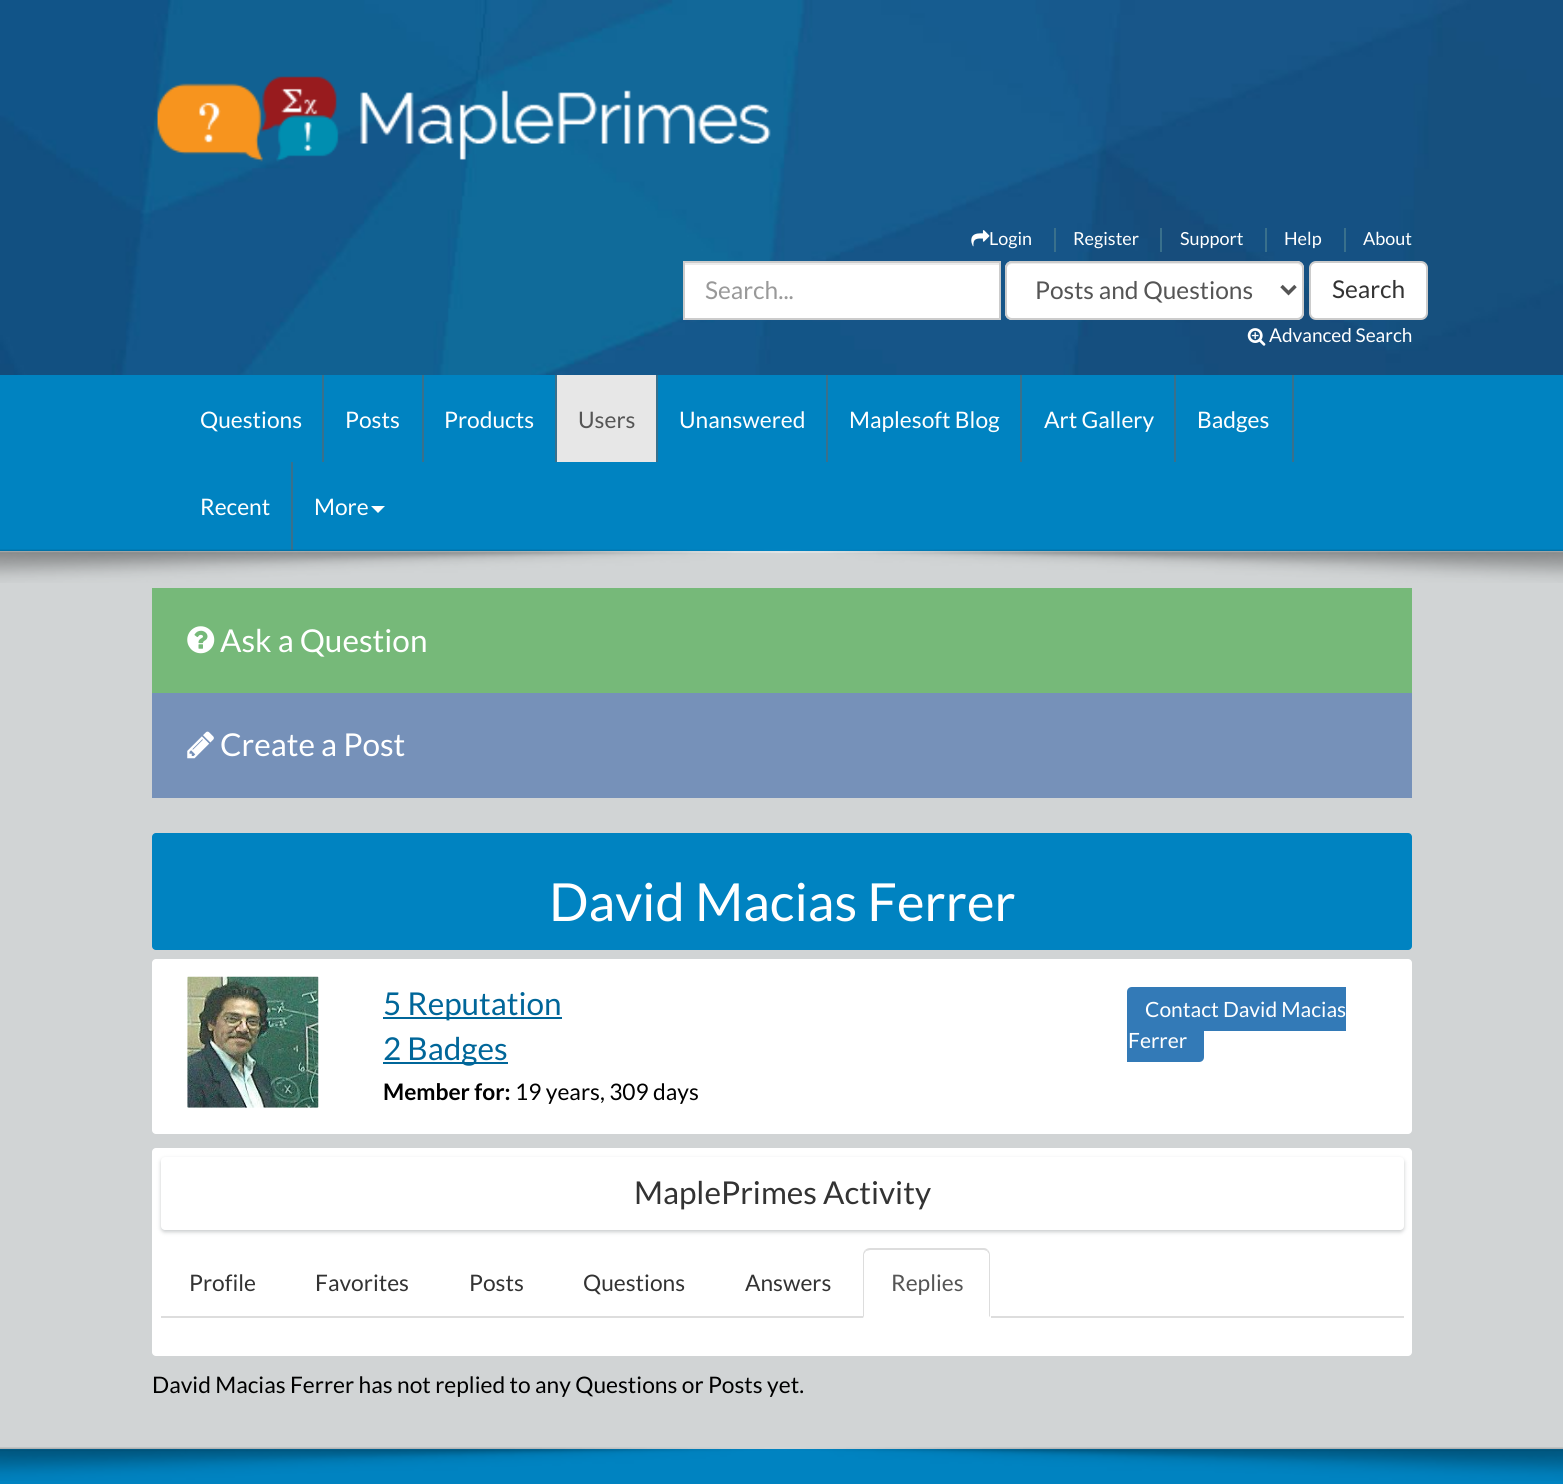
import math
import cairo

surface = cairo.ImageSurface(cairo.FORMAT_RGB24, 1563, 1484)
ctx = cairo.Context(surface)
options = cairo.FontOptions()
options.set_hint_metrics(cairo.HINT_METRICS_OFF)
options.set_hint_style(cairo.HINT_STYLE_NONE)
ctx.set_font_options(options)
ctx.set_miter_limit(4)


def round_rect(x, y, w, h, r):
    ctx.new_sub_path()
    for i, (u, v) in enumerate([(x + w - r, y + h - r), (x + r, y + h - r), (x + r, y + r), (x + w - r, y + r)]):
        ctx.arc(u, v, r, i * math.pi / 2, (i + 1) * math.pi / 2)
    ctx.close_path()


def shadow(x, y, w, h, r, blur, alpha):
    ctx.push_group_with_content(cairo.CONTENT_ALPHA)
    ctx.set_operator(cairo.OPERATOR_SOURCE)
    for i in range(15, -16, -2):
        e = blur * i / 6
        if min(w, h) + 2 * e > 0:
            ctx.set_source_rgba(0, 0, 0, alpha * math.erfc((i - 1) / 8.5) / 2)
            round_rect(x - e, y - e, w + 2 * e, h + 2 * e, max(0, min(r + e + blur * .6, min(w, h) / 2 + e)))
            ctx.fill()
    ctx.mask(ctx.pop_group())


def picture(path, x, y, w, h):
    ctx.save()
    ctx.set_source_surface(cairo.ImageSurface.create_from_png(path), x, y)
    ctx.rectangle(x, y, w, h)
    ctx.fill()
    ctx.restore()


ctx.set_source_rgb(1, 1, 1)
ctx.paint()
picture("img1.png", 0, 0, 1563, 375)
picture("img2.png", 157, 76, 614, 86)
ctx.set_source_rgb(0.224, 0.439, 0.549)
ctx.rectangle(1054, 228, 2, 24)
ctx.fill()
picture("img3.png", 971, 230, 19, 17)
ctx.select_font_face("Lato")
ctx.set_font_size(18)
ctx.set_source_rgb(1, 1, 1)
ctx.move_to(989, 245)
ctx.show_text("Login")
ctx.set_source_rgb(0.224, 0.439, 0.549)
ctx.rectangle(1160, 228, 2, 24)
ctx.fill()
ctx.set_source_rgb(1, 1, 1)
ctx.move_to(1073, 245)
ctx.show_text("Register")
ctx.set_source_rgb(0.224, 0.439, 0.549)
ctx.rectangle(1265, 228, 2, 24)
ctx.fill()
ctx.set_source_rgb(1, 1, 1)
ctx.move_to(1180, 245)
ctx.show_text("Support")
ctx.set_source_rgb(0.224, 0.439, 0.549)
ctx.rectangle(1344, 228, 2, 24)
ctx.fill()
ctx.set_source_rgb(1, 1, 1)
ctx.move_to(1284, 245)
ctx.show_text("Help")
ctx.move_to(1363, 245)
ctx.show_text("About")
ctx.rectangle(685, 265, 314, 53)
ctx.fill()
ctx.set_source_rgb(0.925, 0.925, 0.925)
ctx.rectangle(684, 263, 315, 2)
ctx.fill()
ctx.rectangle(684, 262, 316, 57)
ctx.set_source_rgb(0.8, 0.8, 0.8)
ctx.stroke()
ctx.set_font_size(24.5)
ctx.set_source_rgb(0.6, 0.6, 0.6)
ctx.move_to(705, 299)
ctx.show_text("Search...")
ctx.set_source_rgb(1, 1, 1)
round_rect(1005, 261, 299, 59, 7)
ctx.fill()
ctx.set_source_rgb(0.925, 0.925, 0.925)
ctx.new_path()
ctx.move_to(1012, 264)
ctx.line_to(1297, 264)
ctx.curve_to(1300, 264, 1302, 267, 1302, 270)
ctx.curve_to(1302, 267, 1301, 263, 1297, 263)
ctx.line_to(1010, 263)
ctx.curve_to(1006, 264, 1006, 267, 1006, 270)
ctx.curve_to(1006, 267, 1009, 264, 1012, 264)
ctx.close_path()
ctx.fill()
round_rect(1006, 262, 297, 57, 6)
ctx.set_source_rgb(0.8, 0.8, 0.8)
ctx.stroke()
ctx.new_path()
ctx.move_to(1281.5, 286)
ctx.line_to(1288.5, 293)
ctx.line_to(1295.5, 286)
ctx.set_source_rgb(0.333, 0.333, 0.333)
ctx.set_line_width(3.5)
ctx.stroke()
ctx.move_to(1035, 299)
ctx.show_text("Posts and Questions")
ctx.set_source_rgb(1, 1, 1)
round_rect(1310, 262, 117, 57, 6)
ctx.fill_preserve()
ctx.set_source_rgb(0.8, 0.8, 0.8)
ctx.set_line_width(2)
ctx.stroke()
ctx.set_source_rgb(0.2, 0.2, 0.2)
ctx.move_to(1332, 298)
ctx.show_text("Search")
picture("img4.png", 1247, 328, 19, 18)
ctx.set_font_size(19)
ctx.set_source_rgb(1, 1, 1)
ctx.move_to(1269, 342)
ctx.show_text("Advanced Search")
ctx.set_source_rgb(0, 0.514, 0.757)
ctx.rectangle(0, 375, 1563, 176)
ctx.fill()
ctx.set_source_rgb(0.224, 0.439, 0.549)
ctx.rectangle(322, 375, 2, 87)
ctx.fill()
ctx.set_font_size(22.75)
ctx.set_source_rgb(1, 1, 1)
ctx.move_to(200, 428)
ctx.show_text("Questions")
ctx.set_source_rgb(0.224, 0.439, 0.549)
ctx.rectangle(422, 375, 2, 87)
ctx.fill()
ctx.set_source_rgb(1, 1, 1)
ctx.move_to(345, 428)
ctx.show_text("Posts")
ctx.set_source_rgb(0.224, 0.439, 0.549)
ctx.rectangle(555, 375, 2, 87)
ctx.fill()
ctx.set_source_rgb(1, 1, 1)
ctx.move_to(444, 428)
ctx.show_text("Products")
ctx.set_source_rgb(0.906, 0.906, 0.906)
ctx.rectangle(557, 375, 99, 87)
ctx.fill()
ctx.set_source_rgb(0.224, 0.439, 0.549)
ctx.rectangle(656, 375, 2, 87)
ctx.fill()
ctx.set_source_rgb(0.333, 0.333, 0.333)
ctx.move_to(578, 428)
ctx.show_text("Users")
ctx.set_source_rgb(0.224, 0.439, 0.549)
ctx.rectangle(826, 375, 2, 87)
ctx.fill()
ctx.set_source_rgb(1, 1, 1)
ctx.move_to(679, 428)
ctx.show_text("Unanswered")
ctx.set_source_rgb(0.224, 0.439, 0.549)
ctx.rectangle(1020, 375, 2, 87)
ctx.fill()
ctx.set_source_rgb(1, 1, 1)
ctx.move_to(849, 428)
ctx.show_text("Maplesoft Blog")
ctx.set_source_rgb(0.224, 0.439, 0.549)
ctx.rectangle(1174, 375, 2, 87)
ctx.fill()
ctx.set_source_rgb(1, 1, 1)
ctx.move_to(1044, 428)
ctx.show_text("Art Gallery")
ctx.set_source_rgb(0.224, 0.439, 0.549)
ctx.rectangle(1292, 375, 2, 87)
ctx.fill()
ctx.set_source_rgb(1, 1, 1)
ctx.move_to(1197, 428)
ctx.show_text("Badges")
ctx.set_source_rgb(0.224, 0.439, 0.549)
ctx.rectangle(291, 462, 2, 88)
ctx.fill()
ctx.set_source_rgb(1, 1, 1)
ctx.move_to(200, 515)
ctx.show_text("Recent")
ctx.move_to(314, 515)
ctx.show_text("More")
ctx.new_path()
ctx.move_to(371, 506)
ctx.line_to(385, 506)
ctx.line_to(378, 513)
ctx.close_path()
ctx.fill()
ctx.set_source_rgb(0.82, 0.831, 0.835)
ctx.rectangle(0, 553, 1563, 896)
ctx.fill()
ctx.set_source_rgb(0.878, 0.894, 0.898)
ctx.rectangle(0, 551, 1563, 2)
ctx.fill()
picture("img5.png", 0, 549, 1563, 34)
ctx.set_source_rgb(0.463, 0.725, 0.475)
ctx.rectangle(152, 588, 1260, 105)
ctx.fill()
picture("img6.png", 187, 626, 28, 28)
ctx.set_font_size(31.5)
ctx.set_source_rgb(1, 1, 1)
ctx.move_to(220, 652)
ctx.show_text("Ask a Question")
ctx.set_source_rgb(0.463, 0.569, 0.725)
ctx.rectangle(152, 693, 1260, 105)
ctx.fill()
picture("img7.png", 187, 731, 27, 28)
ctx.set_source_rgb(1, 1, 1)
ctx.move_to(220, 756)
ctx.show_text("Create a Post")
ctx.set_source_rgb(0, 0.514, 0.757)
round_rect(152, 833, 1260, 117, 4)
ctx.fill()
ctx.set_font_size(52.5)
ctx.set_source_rgb(1, 1, 1)
ctx.move_to(549, 921)
ctx.show_text("David Macias Ferrer")
round_rect(152, 959, 1260, 175, 4)
ctx.fill()
picture("img8.png", 187, 976, 132, 132)
ctx.set_source_rgb(0, 0.4, 0.6)
ctx.rectangle(383, 1017, 179, 2)
ctx.fill()
ctx.set_font_size(31.5)
ctx.move_to(383, 1015)
ctx.show_text("5 Reputation")
ctx.rectangle(383, 1062, 125, 2)
ctx.fill()
ctx.move_to(383, 1060)
ctx.show_text("2 Badges")
ctx.select_font_face("Lato", cairo.FONT_SLANT_NORMAL, cairo.FONT_WEIGHT_BOLD)
ctx.set_font_size(22.75)
ctx.set_source_rgb(0, 0, 0)
ctx.move_to(383, 1100)
ctx.show_text("Member for:")
ctx.select_font_face("Lato")
ctx.move_to(515, 1100)
ctx.show_text("19 years, 309 days")
ctx.set_source_rgb(0.2, 0.478, 0.718)
ctx.new_path()
ctx.move_to(1132, 987)
ctx.line_to(1346, 987)
ctx.line_to(1346, 1031)
ctx.line_to(1132, 1031)
ctx.curve_to(1129, 1031, 1127, 1029, 1127, 1026)
ctx.line_to(1127, 992)
ctx.curve_to(1127, 989, 1129, 987, 1132, 987)
ctx.close_path()
ctx.fill()
ctx.set_font_size(21)
ctx.set_source_rgb(1, 1, 1)
ctx.move_to(1145, 1017)
ctx.show_text("Contact David Macias")
ctx.set_source_rgb(0.2, 0.478, 0.718)
ctx.new_path()
ctx.move_to(1127, 1019)
ctx.line_to(1199, 1019)
ctx.curve_to(1202, 1019, 1204, 1021, 1204, 1024)
ctx.line_to(1204, 1057)
ctx.curve_to(1204, 1060, 1202, 1062, 1199, 1062)
ctx.line_to(1127, 1062)
ctx.close_path()
ctx.fill()
ctx.set_source_rgb(1, 1, 1)
ctx.move_to(1128, 1048)
ctx.show_text("Ferrer")
round_rect(152, 1148, 1260, 208, 4)
ctx.fill()
ctx.set_source_rgb(0.788, 0.8, 0.804)
shadow(161, 1159, 1243, 73, 4, 2, 1)
ctx.set_source_rgb(1, 1, 1)
round_rect(161, 1157, 1243, 73, 4)
ctx.fill()
ctx.set_font_size(31.5)
ctx.set_source_rgb(0.2, 0.2, 0.2)
ctx.move_to(634, 1204)
ctx.show_text("MaplePrimes Activity")
ctx.set_source_rgb(0.867, 0.867, 0.867)
ctx.rectangle(161, 1316, 1243, 2)
ctx.fill()
ctx.set_font_size(22.75)
ctx.set_source_rgb(0.2, 0.2, 0.2)
ctx.move_to(189, 1291)
ctx.show_text("Profile")
ctx.move_to(315, 1291)
ctx.show_text("Favorites")
ctx.move_to(469, 1291)
ctx.show_text("Posts")
ctx.move_to(583, 1291)
ctx.show_text("Questions")
ctx.move_to(745, 1291)
ctx.show_text("Answers")
ctx.set_source_rgb(1, 1, 1)
ctx.new_path()
ctx.move_to(870, 1248)
ctx.line_to(984, 1248)
ctx.curve_to(988, 1248, 991, 1251, 991, 1255)
ctx.line_to(991, 1318)
ctx.line_to(863, 1318)
ctx.line_to(863, 1255)
ctx.curve_to(863, 1251, 866, 1248, 870, 1248)
ctx.close_path()
ctx.fill()
ctx.set_source_rgb(0.867, 0.867, 0.867)
ctx.new_path()
ctx.move_to(870, 1248)
ctx.curve_to(868, 1248, 866, 1249, 865, 1250)
ctx.line_to(866, 1251)
ctx.line_to(870, 1250)
ctx.line_to(984, 1250)
ctx.line_to(987, 1251)
ctx.line_to(988, 1250)
ctx.curve_to(987, 1249, 986, 1248, 984, 1248)
ctx.close_path()
ctx.fill()
ctx.new_path()
ctx.move_to(990, 1317)
ctx.line_to(990, 1255)
ctx.curve_to(990, 1253, 989, 1251, 988, 1250)
ctx.line_to(987, 1251)
ctx.line_to(989, 1254)
ctx.line_to(989, 1316)
ctx.close_path()
ctx.fill()
ctx.new_path()
ctx.move_to(865, 1250)
ctx.curve_to(864, 1251, 863, 1253, 863, 1255)
ctx.line_to(863, 1318)
ctx.line_to(864, 1316)
ctx.line_to(864, 1254)
ctx.line_to(866, 1251)
ctx.close_path()
ctx.fill()
ctx.set_source_rgb(0.333, 0.333, 0.333)
ctx.move_to(891, 1291)
ctx.show_text("Replies")
ctx.set_source_rgb(0, 0, 0)
ctx.move_to(152, 1393)
ctx.show_text("David Macias Ferrer has not replied to any Questions or Posts yet.")
ctx.set_source_rgb(0, 0.514, 0.757)
ctx.rectangle(0, 1449, 1563, 35)
ctx.fill()
picture("img9.png", 0, 1447, 1563, 34)
surface.write_to_png("page.png")
